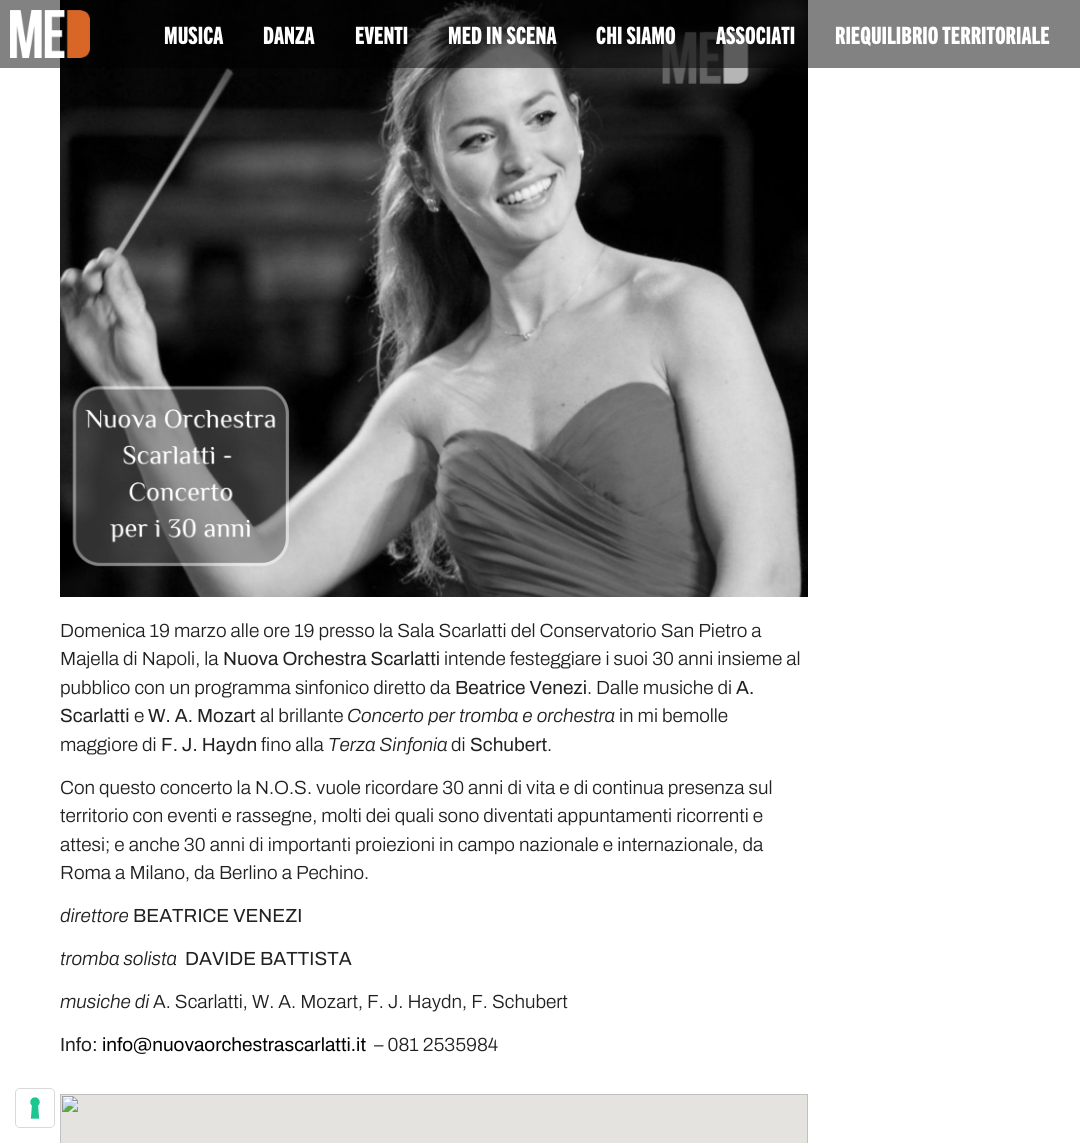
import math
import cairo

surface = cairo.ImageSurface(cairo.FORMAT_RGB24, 1080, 1143)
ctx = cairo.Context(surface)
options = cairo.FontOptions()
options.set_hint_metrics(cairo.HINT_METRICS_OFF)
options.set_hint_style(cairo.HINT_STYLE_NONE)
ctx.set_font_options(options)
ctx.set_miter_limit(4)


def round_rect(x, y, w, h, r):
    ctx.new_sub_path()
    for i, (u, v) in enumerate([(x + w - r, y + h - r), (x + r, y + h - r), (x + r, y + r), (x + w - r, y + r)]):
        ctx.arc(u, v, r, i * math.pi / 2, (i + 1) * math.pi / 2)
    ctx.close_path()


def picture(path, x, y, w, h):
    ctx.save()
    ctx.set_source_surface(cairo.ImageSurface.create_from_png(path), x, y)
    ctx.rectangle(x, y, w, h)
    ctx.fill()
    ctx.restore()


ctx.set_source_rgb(1, 1, 1)
ctx.paint()
picture("img2.png", 60, 0, 748, 597)
ctx.set_source_rgba(0, 0, 0, 0.49)
ctx.rectangle(0, 0, 1080, 68)
ctx.fill()
picture("img1.png", 10, 10, 80, 48)
ctx.select_font_face("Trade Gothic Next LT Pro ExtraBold")
ctx.set_font_size(24)
ctx.set_source_rgb(1, 1, 1)
ctx.move_to(164, 44)
ctx.show_text("MUSICA")
ctx.move_to(263, 44)
ctx.show_text("DANZA")
ctx.move_to(355, 44)
ctx.show_text("EVENTI")
ctx.move_to(448, 44)
ctx.show_text("MED IN SCENA")
ctx.move_to(596, 44)
ctx.show_text("CHI SIAMO")
ctx.move_to(716, 44)
ctx.show_text("ASSOCIATI")
ctx.move_to(835, 44)
ctx.show_text("RIEQUILIBRIO TERRITORIALE")
ctx.select_font_face("Archivo Light")
ctx.set_font_size(19)
ctx.set_source_rgb(0.129, 0.129, 0.129)
ctx.move_to(60, 637)
ctx.show_text("Domenica 19 marzo alle ore 19 presso la Sala Scarlatti del Conservatorio San Pietro a")
ctx.move_to(60, 665)
ctx.show_text("Majella di Napoli, la")
ctx.select_font_face("Archivo")
ctx.move_to(223, 665)
ctx.show_text("Nuova Orchestra Scarlatti")
ctx.select_font_face("Archivo Light")
ctx.move_to(444, 665)
ctx.show_text("intende festeggiare i suoi 30 anni insieme al")
ctx.move_to(60, 694)
ctx.show_text("pubblico con un programma sinfonico diretto da")
ctx.select_font_face("Archivo")
ctx.move_to(455, 694)
ctx.show_text("Beatrice Venezi")
ctx.select_font_face("Archivo Light")
ctx.move_to(587, 694)
ctx.show_text(". Dalle musiche di")
ctx.select_font_face("Archivo")
ctx.move_to(736, 694)
ctx.show_text("A.")
ctx.move_to(60, 722)
ctx.show_text("Scarlatti")
ctx.select_font_face("Archivo Light")
ctx.move_to(134, 722)
ctx.show_text("e")
ctx.select_font_face("Archivo")
ctx.move_to(148, 722)
ctx.show_text("W. A. Mozart")
ctx.select_font_face("Archivo Light")
ctx.move_to(260, 722)
ctx.show_text("al brillante")
ctx.select_font_face("Archivo Light", cairo.FONT_SLANT_ITALIC)
ctx.move_to(347, 722)
ctx.show_text("Concerto per tromba e orchestra")
ctx.select_font_face("Archivo Light")
ctx.move_to(619, 722)
ctx.show_text("in mi bemolle")
ctx.move_to(60, 751)
ctx.show_text("maggiore di")
ctx.select_font_face("Archivo")
ctx.move_to(161, 751)
ctx.show_text("F. J. Haydn")
ctx.select_font_face("Archivo Light")
ctx.move_to(261, 751)
ctx.show_text("fino alla")
ctx.select_font_face("Archivo Light", cairo.FONT_SLANT_ITALIC)
ctx.move_to(328, 751)
ctx.show_text("Terza Sinfonia")
ctx.select_font_face("Archivo Light")
ctx.move_to(451, 751)
ctx.show_text("di")
ctx.select_font_face("Archivo")
ctx.move_to(470, 751)
ctx.show_text("Schubert")
ctx.select_font_face("Archivo Light")
ctx.move_to(547, 751)
ctx.show_text(".")
ctx.move_to(60, 794)
ctx.show_text("Con questo concerto la N.O.S. vuole ricordare 30 anni di vita e di continua presenza sul")
ctx.move_to(60, 822)
ctx.show_text("territorio con eventi e rassegne, molti dei quali sono diventati appuntamenti ricorrenti e")
ctx.move_to(60, 851)
ctx.show_text("attesi; e anche 30 anni di importanti proiezioni in campo nazionale e internazionale, da")
ctx.move_to(60, 879)
ctx.show_text("Roma a Milano, da Berlino a Pechino.")
ctx.select_font_face("Archivo Light", cairo.FONT_SLANT_ITALIC)
ctx.move_to(60, 922)
ctx.show_text("direttore")
ctx.select_font_face("Archivo")
ctx.move_to(133, 922)
ctx.show_text("BEATRICE VENEZI")
ctx.select_font_face("Archivo Light", cairo.FONT_SLANT_ITALIC)
ctx.move_to(60, 965)
ctx.show_text("tromba solista")
ctx.select_font_face("Archivo")
ctx.move_to(185, 965)
ctx.show_text("DAVIDE BATTISTA")
ctx.select_font_face("Archivo Light", cairo.FONT_SLANT_ITALIC)
ctx.move_to(60, 1008)
ctx.show_text("musiche di")
ctx.select_font_face("Archivo Light")
ctx.move_to(153, 1008)
ctx.show_text("A. Scarlatti, W. A. Mozart, F. J. Haydn, F. Schubert")
ctx.select_font_face("Archivo")
ctx.move_to(60, 1051)
ctx.show_text("Info:")
ctx.set_source_rgb(0, 0, 0)
ctx.move_to(102, 1051)
ctx.show_text("info@nuovaorchestrascarlatti.it")
ctx.select_font_face("Archivo Light")
ctx.set_source_rgb(0.129, 0.129, 0.129)
ctx.move_to(374, 1051)
ctx.show_text("– 081 2535984")
picture("img3.png", 60, 1094, 748, 49)
round_rect(15.5, 1088.5, 39, 39, 4.5)
ctx.set_source_rgb(0.851, 0.851, 0.851)
ctx.set_line_width(1)
ctx.stroke()
ctx.set_source_rgb(1, 1, 1)
round_rect(16, 1089, 38, 38, 4)
ctx.fill()
picture("img4.png", 30, 1097, 10, 22)
surface.write_to_png("page.png")
